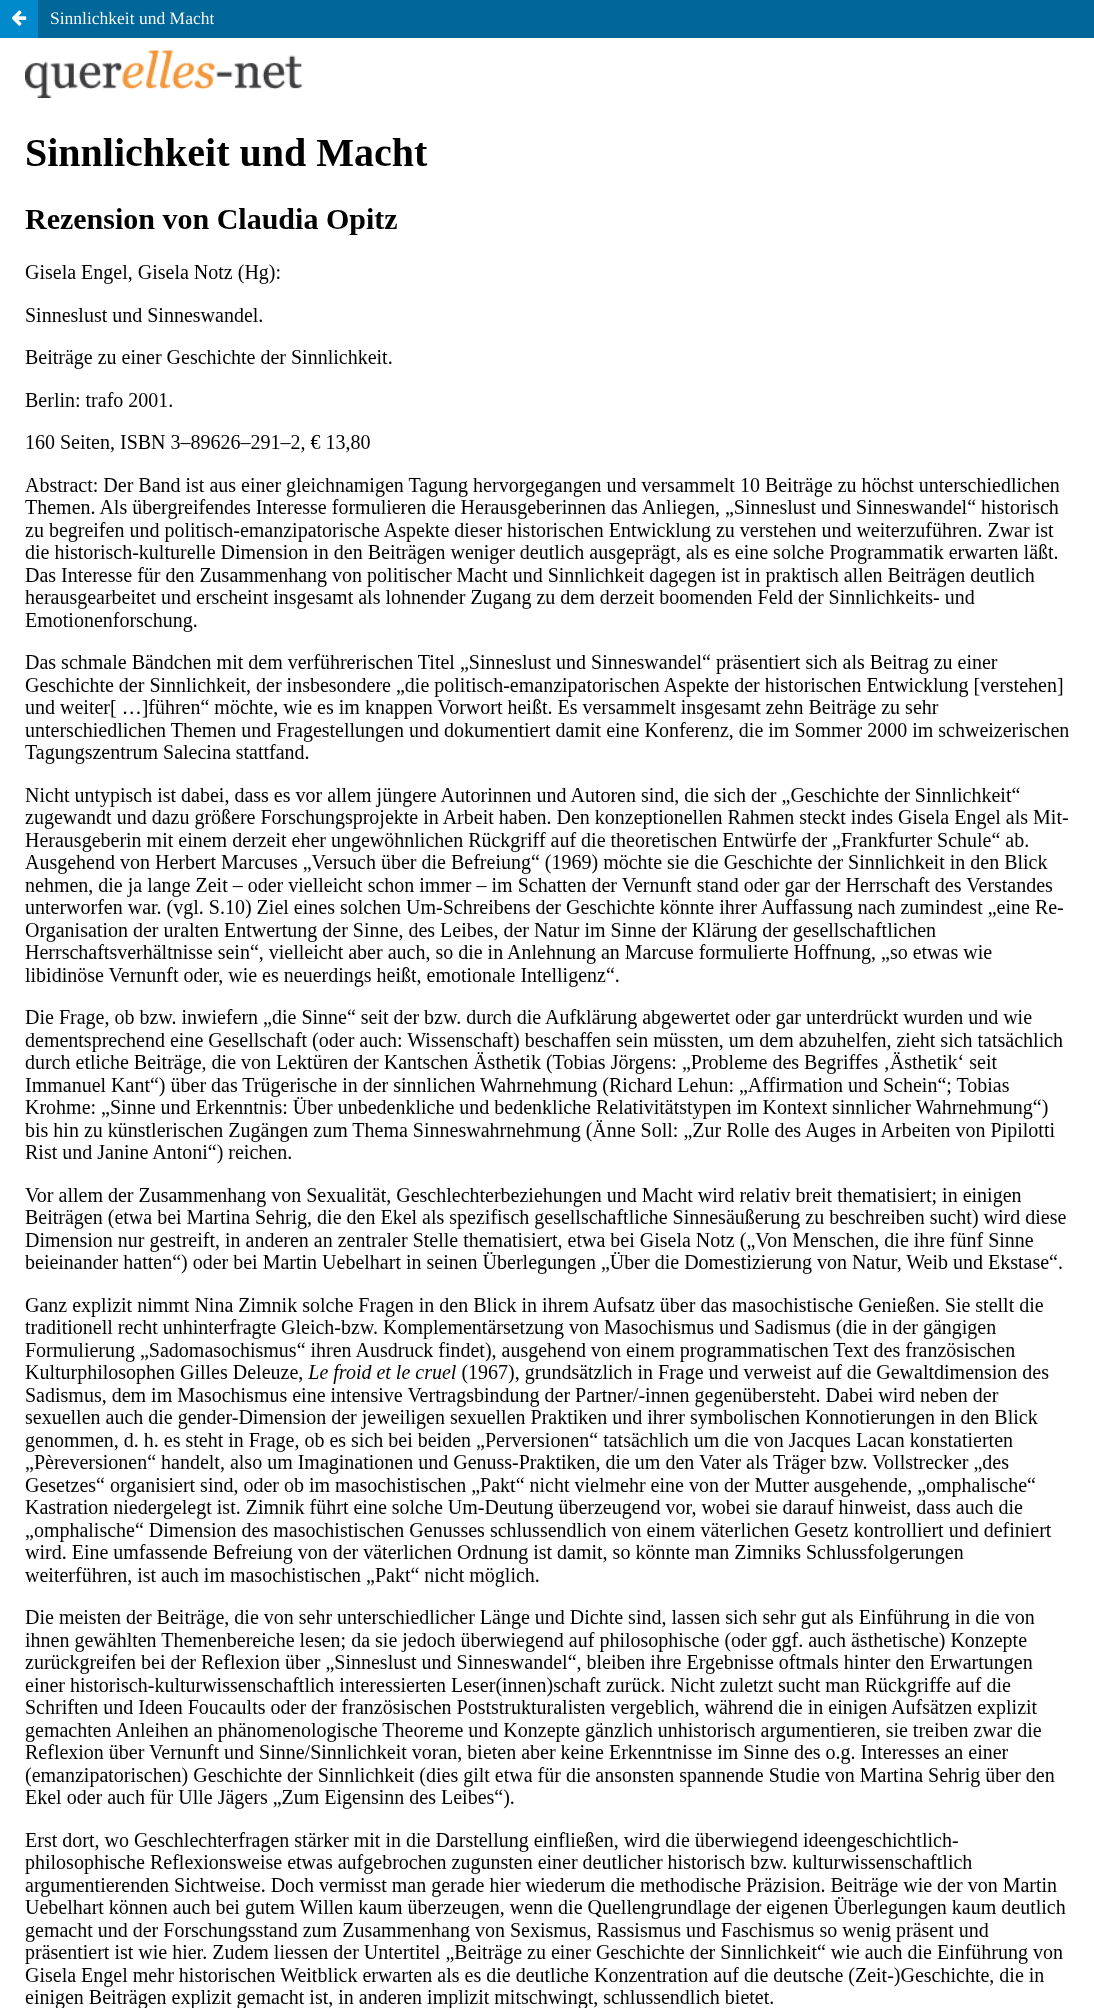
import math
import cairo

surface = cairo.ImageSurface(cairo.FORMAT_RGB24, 1094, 2008)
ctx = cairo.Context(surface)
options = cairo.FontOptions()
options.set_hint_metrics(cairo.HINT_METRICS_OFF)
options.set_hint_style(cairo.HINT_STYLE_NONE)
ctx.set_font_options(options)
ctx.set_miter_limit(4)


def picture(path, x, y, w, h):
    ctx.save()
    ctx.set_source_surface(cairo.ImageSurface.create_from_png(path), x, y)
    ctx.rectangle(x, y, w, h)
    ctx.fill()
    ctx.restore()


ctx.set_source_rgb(1, 1, 1)
ctx.paint()
ctx.set_source_rgb(0, 0.404, 0.596)
ctx.rectangle(38, 0, 1056, 38)
ctx.fill()
ctx.set_source_rgb(0, 0.541, 0.796)
ctx.rectangle(0, 0, 38, 38)
ctx.fill()
picture("img1.png", 11, 10, 16, 16)
ctx.select_font_face("Liberation Serif")
ctx.set_font_size(17.5)
ctx.set_source_rgb(1, 1, 1)
ctx.move_to(50, 24)
ctx.show_text("Sinnlichkeit und Macht")
picture("img2.png", 25, 50, 1044, 1958)
surface.write_to_png("page.png")
